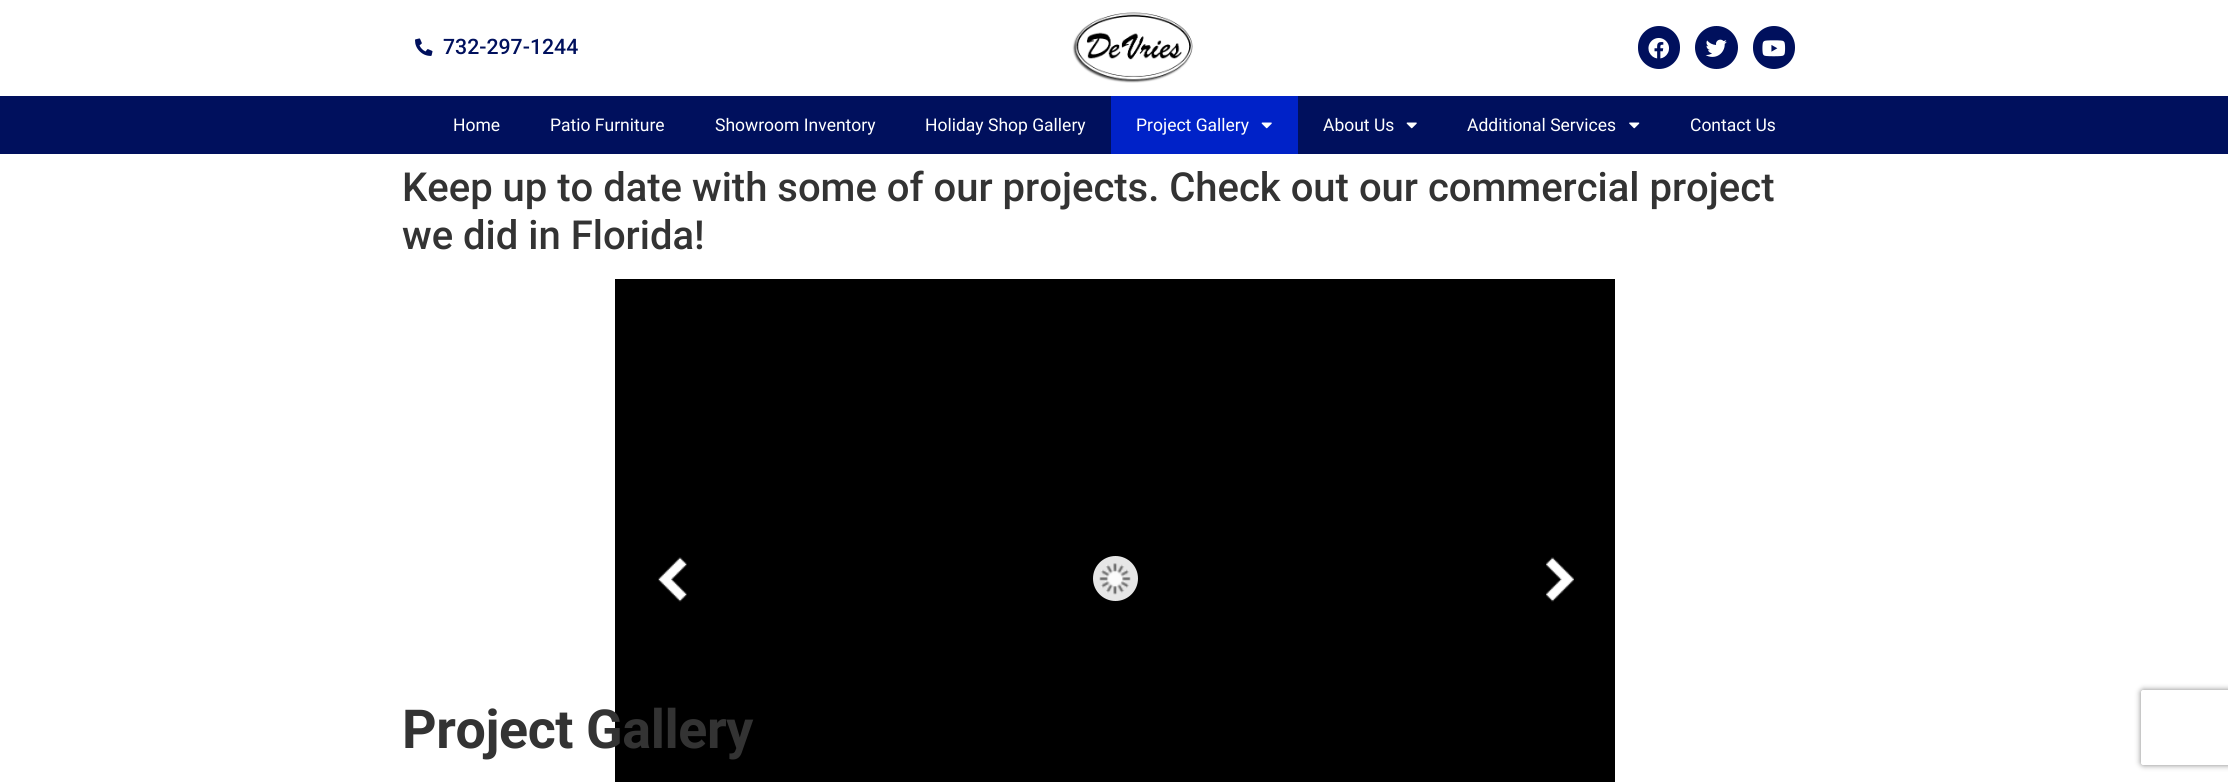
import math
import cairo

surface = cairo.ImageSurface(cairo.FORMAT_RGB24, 2228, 782)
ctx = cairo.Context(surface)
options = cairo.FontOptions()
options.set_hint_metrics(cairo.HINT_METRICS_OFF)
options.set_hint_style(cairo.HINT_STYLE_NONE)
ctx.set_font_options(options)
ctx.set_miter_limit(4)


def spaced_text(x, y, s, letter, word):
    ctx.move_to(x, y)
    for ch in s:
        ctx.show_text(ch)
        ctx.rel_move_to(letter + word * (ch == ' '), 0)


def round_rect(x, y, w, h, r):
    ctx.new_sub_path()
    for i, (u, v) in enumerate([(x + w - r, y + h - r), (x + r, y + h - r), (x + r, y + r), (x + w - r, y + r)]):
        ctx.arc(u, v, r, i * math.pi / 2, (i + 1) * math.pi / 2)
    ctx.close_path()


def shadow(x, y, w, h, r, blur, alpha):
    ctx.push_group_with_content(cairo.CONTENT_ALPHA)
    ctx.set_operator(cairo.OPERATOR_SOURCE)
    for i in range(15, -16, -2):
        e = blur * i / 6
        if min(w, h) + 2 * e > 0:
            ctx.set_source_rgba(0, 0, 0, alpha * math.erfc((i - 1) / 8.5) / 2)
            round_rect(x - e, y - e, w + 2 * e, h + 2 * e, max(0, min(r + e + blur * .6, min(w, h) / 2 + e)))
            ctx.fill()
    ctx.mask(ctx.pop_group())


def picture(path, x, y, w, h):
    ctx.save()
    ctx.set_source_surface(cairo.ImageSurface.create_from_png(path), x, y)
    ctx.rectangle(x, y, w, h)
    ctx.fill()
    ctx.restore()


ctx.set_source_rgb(1, 1, 1)
ctx.paint()
picture("img1.png", 415, 38, 18, 18)
ctx.select_font_face("Roboto Medium")
ctx.set_font_size(21.25)
ctx.set_source_rgb(0, 0.063, 0.365)
ctx.move_to(443, 54)
ctx.show_text("732-297-1244")
picture("img2.png", 1072, 12, 121, 71)
round_rect(1638, 26, 42, 43, 21)
ctx.fill()
picture("img3.png", 1648, 38, 21, 21)
ctx.arc(1716.5, 47.5, 21.5, 0, 2 * math.pi)
ctx.fill()
picture("img4.png", 1705, 39, 22, 18)
round_rect(1753, 26, 42, 43, 21)
ctx.fill()
picture("img5.png", 1762, 40, 24, 17)
ctx.rectangle(0, 96, 2228, 58)
ctx.fill()
ctx.select_font_face("Roboto")
ctx.set_font_size(17.5)
ctx.set_source_rgb(1, 1, 1)
ctx.move_to(453, 131)
ctx.show_text("Home")
ctx.move_to(550, 131)
ctx.show_text("Patio Furniture")
ctx.move_to(715, 131)
ctx.show_text("Showroom Inventory")
ctx.move_to(925, 131)
ctx.show_text("Holiday Shop Gallery")
ctx.set_source_rgb(0, 0.133, 0.784)
ctx.rectangle(1111, 96, 187, 58)
ctx.fill()
ctx.set_source_rgb(1, 1, 1)
ctx.move_to(1136, 131)
ctx.show_text("Project Gallery")
picture("img6.png", 1261, 122, 11, 7)
ctx.move_to(1323, 131)
ctx.show_text("About Us")
picture("img7.png", 1406, 122, 11, 7)
ctx.move_to(1467, 131)
ctx.show_text("Additional Services")
picture("img8.png", 1629, 122, 11, 7)
ctx.move_to(1690, 131)
ctx.show_text("Contact Us")
ctx.select_font_face("Roboto Medium")
ctx.set_font_size(40)
ctx.set_source_rgb(0.2, 0.2, 0.2)
ctx.move_to(402, 201)
ctx.show_text("Keep up to date with some of our projects. Check out our commercial project")
ctx.move_to(402, 249)
ctx.show_text("we did in Florida!")
ctx.set_source_rgb(0, 0, 0)
ctx.rectangle(615, 279, 1000, 503)
ctx.fill()
picture("img9.png", 658, 557, 29, 45)
ctx.set_source_rgb(0.902, 0.902, 0.902)
ctx.arc(1115.5, 578.5, 22.5, 0, 2 * math.pi)
ctx.fill()
picture("img10.png", 1099, 563, 32, 32)
picture("img11.png", 1546, 557, 28, 45)
ctx.select_font_face("Roboto", cairo.FONT_SLANT_NORMAL, cairo.FONT_WEIGHT_BOLD)
ctx.set_font_size(53.75)
ctx.set_source_rgb(0.2, 0.2, 0.2)
spaced_text(402, 748, "Project Gallery", -0.4, 0)
ctx.save()
ctx.set_fill_rule(cairo.FILL_RULE_EVEN_ODD)
ctx.new_path()
ctx.move_to(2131, 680)
ctx.line_to(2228, 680)
ctx.line_to(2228, 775)
ctx.line_to(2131, 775)
ctx.close_path()
ctx.move_to(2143.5, 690)
ctx.line_to(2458.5, 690)
ctx.curve_to(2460, 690, 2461, 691, 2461, 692.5)
ctx.line_to(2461, 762.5)
ctx.curve_to(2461, 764, 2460, 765, 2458.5, 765)
ctx.line_to(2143.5, 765)
ctx.curve_to(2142, 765, 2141, 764, 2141, 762.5)
ctx.line_to(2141, 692.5)
ctx.curve_to(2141, 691, 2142, 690, 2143.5, 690)
ctx.close_path()
ctx.clip()
ctx.set_source_rgb(0.502, 0.502, 0.502)
shadow(2141, 690, 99, 75, 2.5, 3, 1)
ctx.restore()
surface.write_to_png("page.png")
